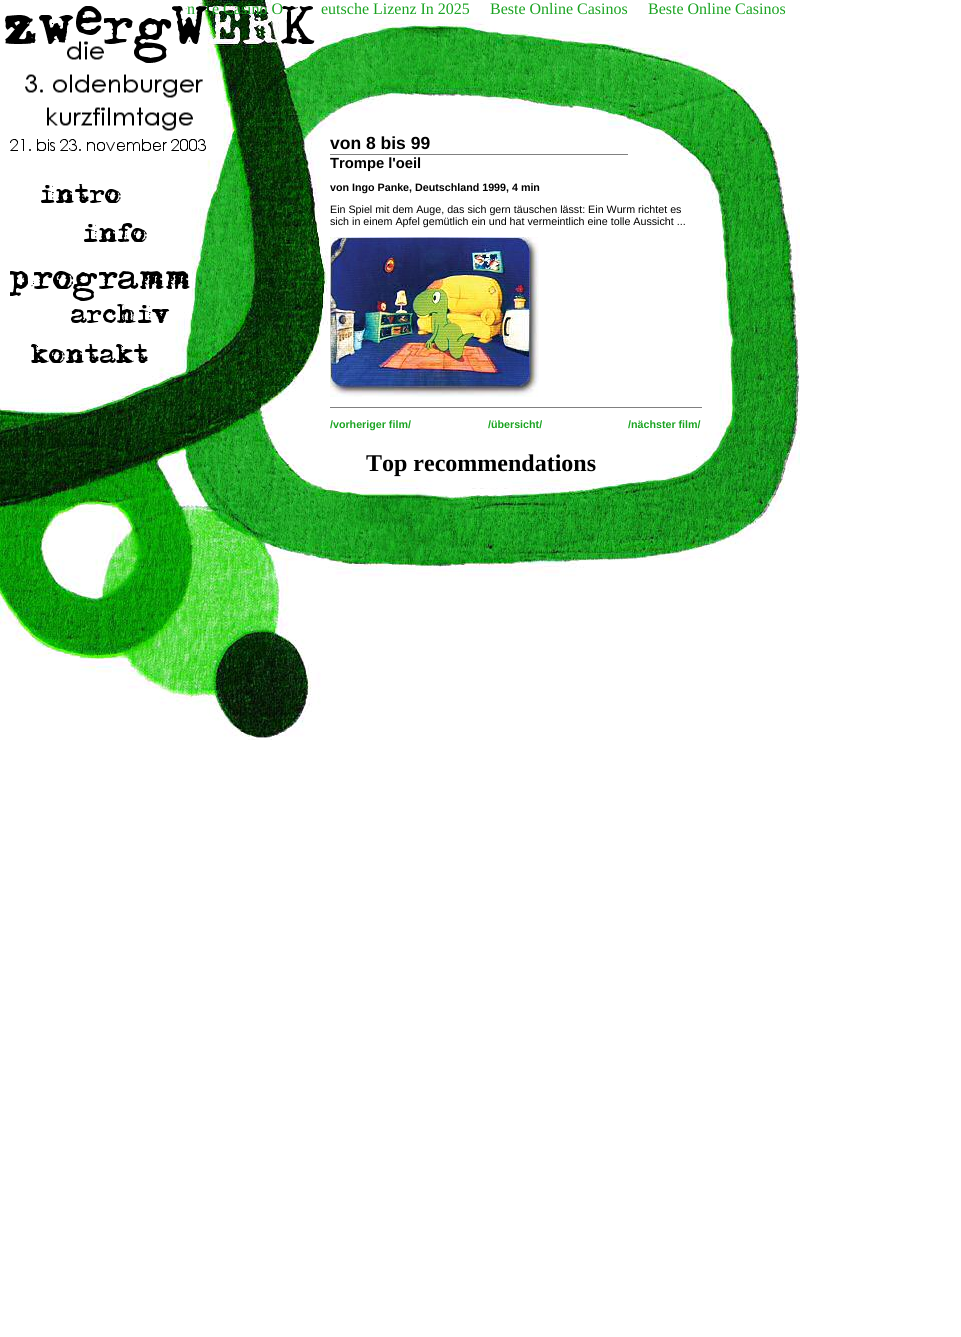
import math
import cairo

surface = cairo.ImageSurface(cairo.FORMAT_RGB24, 961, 1337)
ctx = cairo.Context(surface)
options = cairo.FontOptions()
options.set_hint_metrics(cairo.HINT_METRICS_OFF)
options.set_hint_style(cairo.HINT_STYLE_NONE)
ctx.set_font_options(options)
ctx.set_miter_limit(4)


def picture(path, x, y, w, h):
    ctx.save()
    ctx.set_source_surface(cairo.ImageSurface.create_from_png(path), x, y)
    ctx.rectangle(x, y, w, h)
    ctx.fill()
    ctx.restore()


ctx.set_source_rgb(1, 1, 1)
ctx.paint()
picture("img1.png", 0, 0, 800, 740)
ctx.select_font_face("Liberation Serif")
ctx.set_font_size(16)
ctx.set_source_rgb(0.102, 0.639, 0.129)
ctx.move_to(187, 14)
ctx.show_text("n")
ctx.move_to(212, 14)
ctx.show_text("e Casino O")
picture("img2.png", 5, 6, 310, 145)
ctx.move_to(321, 14)
ctx.show_text("eutsche Lizenz In 2025")
ctx.move_to(490, 14)
ctx.show_text("Beste Online Casinos")
ctx.move_to(648, 14)
ctx.show_text("Beste Online Casinos")
picture("img3.png", 41, 184, 80, 19)
picture("img4.png", 84, 223, 63, 19)
picture("img5.png", 10, 271, 180, 30)
picture("img6.png", 71, 304, 99, 19)
picture("img7.png", 31, 344, 117, 19)
ctx.select_font_face("Liberation Sans", cairo.FONT_SLANT_NORMAL, cairo.FONT_WEIGHT_BOLD)
ctx.set_font_size(17.5)
ctx.set_source_rgb(0, 0, 0)
ctx.move_to(330, 149)
ctx.show_text("von 8 bis 99")
ctx.set_source_rgb(0.502, 0.502, 0.502)
ctx.rectangle(330, 154, 298, 1)
ctx.fill()
ctx.set_font_size(14.75)
ctx.set_source_rgb(0, 0, 0)
ctx.move_to(330, 168)
ctx.show_text("Trompe l'oeil")
ctx.set_font_size(10.7)
ctx.move_to(330, 191)
ctx.show_text("von Ingo Panke, Deutschland 1999, 4 min")
ctx.select_font_face("Liberation Sans")
ctx.move_to(330, 213)
ctx.show_text("Ein Spiel mit dem Auge, das sich gern täuschen lässt: Ein Wurm richtet es")
ctx.move_to(330, 225)
ctx.show_text("sich in einem Apfel gemütlich ein und hat vermeintlich eine tolle Aussicht ...")
picture("img8.png", 330, 237, 209, 160)
ctx.set_source_rgb(0.502, 0.502, 0.502)
ctx.rectangle(330, 407, 372, 1)
ctx.fill()
ctx.select_font_face("Liberation Sans", cairo.FONT_SLANT_NORMAL, cairo.FONT_WEIGHT_BOLD)
ctx.set_source_rgb(0.102, 0.639, 0.129)
ctx.move_to(330, 428)
ctx.show_text("/vorheriger film/")
ctx.move_to(488, 428)
ctx.show_text("/übersicht/")
ctx.move_to(628, 428)
ctx.show_text("/nächster film/")
ctx.select_font_face("Liberation Serif", cairo.FONT_SLANT_NORMAL, cairo.FONT_WEIGHT_BOLD)
ctx.set_font_size(24)
ctx.set_source_rgb(0, 0, 0)
ctx.move_to(366, 471)
ctx.show_text("Top recommendations")
surface.write_to_png("page.png")
